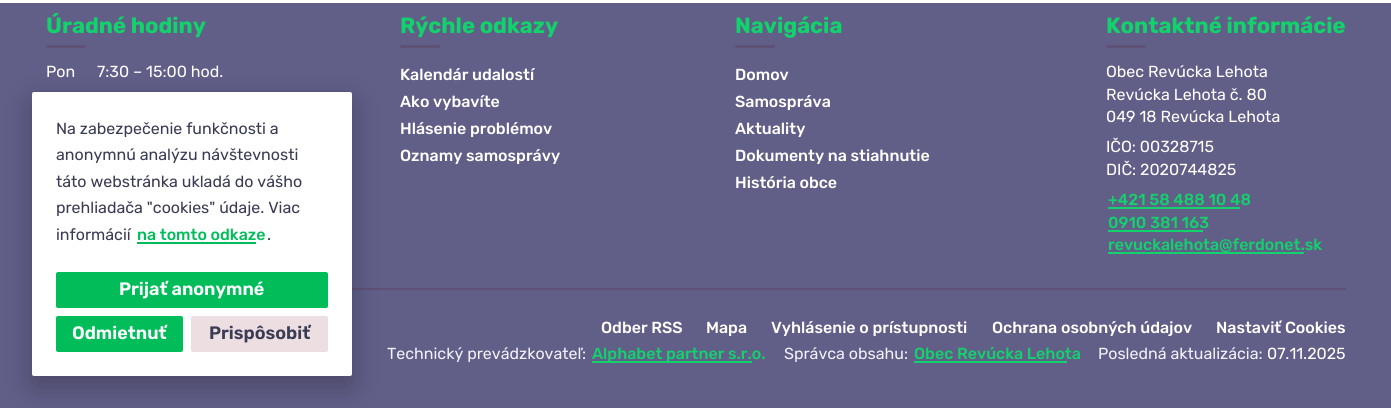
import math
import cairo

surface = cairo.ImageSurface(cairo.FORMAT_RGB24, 1391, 408)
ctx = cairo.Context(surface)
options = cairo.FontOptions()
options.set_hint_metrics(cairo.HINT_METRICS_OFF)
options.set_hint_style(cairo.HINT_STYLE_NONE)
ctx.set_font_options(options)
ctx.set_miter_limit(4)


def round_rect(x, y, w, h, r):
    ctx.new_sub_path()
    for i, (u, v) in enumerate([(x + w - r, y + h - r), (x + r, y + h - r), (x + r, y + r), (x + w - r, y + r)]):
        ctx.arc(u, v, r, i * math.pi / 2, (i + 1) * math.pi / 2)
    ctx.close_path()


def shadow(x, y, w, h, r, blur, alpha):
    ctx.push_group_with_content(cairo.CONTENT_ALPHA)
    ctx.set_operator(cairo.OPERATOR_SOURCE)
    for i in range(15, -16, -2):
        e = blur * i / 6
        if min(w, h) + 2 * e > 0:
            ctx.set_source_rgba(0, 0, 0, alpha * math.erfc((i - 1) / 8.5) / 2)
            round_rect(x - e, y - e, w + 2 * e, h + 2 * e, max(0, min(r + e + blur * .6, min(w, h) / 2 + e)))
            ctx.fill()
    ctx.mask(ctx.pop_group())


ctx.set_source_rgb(0.38, 0.369, 0.533)
ctx.paint()
ctx.set_source_rgb(1, 1, 1)
ctx.rectangle(0, 0, 1391, 3)
ctx.fill()
ctx.select_font_face("Rubik", cairo.FONT_SLANT_NORMAL, cairo.FONT_WEIGHT_BOLD)
ctx.set_font_size(22)
ctx.set_source_rgb(0.071, 0.824, 0.424)
ctx.move_to(46, 33)
ctx.show_text("Úradné hodiny")
ctx.set_source_rgb(0.373, 0.318, 0.463)
round_rect(46, 45, 40, 3, 1.5)
ctx.fill()
ctx.select_font_face("Rubik")
ctx.set_font_size(16)
ctx.set_source_rgb(1, 1, 1)
ctx.move_to(46, 77)
ctx.show_text("Pon")
ctx.move_to(97, 77)
ctx.show_text("7:30 – 15:00 hod.")
ctx.select_font_face("Rubik", cairo.FONT_SLANT_NORMAL, cairo.FONT_WEIGHT_BOLD)
ctx.set_font_size(22)
ctx.set_source_rgb(0.071, 0.824, 0.424)
ctx.move_to(400, 33)
ctx.show_text("Rýchle odkazy")
ctx.set_source_rgb(0.373, 0.318, 0.463)
round_rect(400, 45, 40, 3, 1.5)
ctx.fill()
ctx.select_font_face("Rubik Medium")
ctx.set_font_size(16)
ctx.set_source_rgb(1, 1, 1)
ctx.move_to(400, 80)
ctx.show_text("Kalendár udalostí")
ctx.move_to(400, 107)
ctx.show_text("Ako vybavíte")
ctx.move_to(400, 134)
ctx.show_text("Hlásenie problémov")
ctx.move_to(400, 161)
ctx.show_text("Oznamy samosprávy")
ctx.select_font_face("Rubik", cairo.FONT_SLANT_NORMAL, cairo.FONT_WEIGHT_BOLD)
ctx.set_font_size(22)
ctx.set_source_rgb(0.071, 0.824, 0.424)
ctx.move_to(735, 33)
ctx.show_text("Navigácia")
ctx.set_source_rgb(0.373, 0.318, 0.463)
round_rect(735, 45, 40, 3, 1.5)
ctx.fill()
ctx.select_font_face("Rubik Medium")
ctx.set_font_size(16)
ctx.set_source_rgb(1, 1, 1)
ctx.move_to(735, 80)
ctx.show_text("Domov")
ctx.move_to(735, 107)
ctx.show_text("Samospráva")
ctx.move_to(735, 134)
ctx.show_text("Aktuality")
ctx.move_to(735, 161)
ctx.show_text("Dokumenty na stiahnutie")
ctx.move_to(735, 188)
ctx.show_text("História obce")
ctx.select_font_face("Rubik", cairo.FONT_SLANT_NORMAL, cairo.FONT_WEIGHT_BOLD)
ctx.set_font_size(22)
ctx.set_source_rgb(0.071, 0.824, 0.424)
ctx.move_to(1106, 33)
ctx.show_text("Kontaktné informácie")
ctx.set_source_rgb(0.373, 0.318, 0.463)
round_rect(1106, 45, 40, 3, 1.5)
ctx.fill()
ctx.select_font_face("Rubik")
ctx.set_font_size(16)
ctx.set_source_rgb(1, 1, 1)
ctx.move_to(1106, 77)
ctx.show_text("Obec Revúcka Lehota")
ctx.move_to(1106, 100)
ctx.show_text("Revúcka Lehota č. 80")
ctx.move_to(1106, 122)
ctx.show_text("049 18 Revúcka Lehota")
ctx.move_to(1106, 152)
ctx.show_text("IČO: 00328715")
ctx.move_to(1106, 175)
ctx.show_text("DIČ: 2020744825")
ctx.select_font_face("Rubik Medium")
ctx.set_source_rgb(0.071, 0.824, 0.424)
ctx.move_to(1108, 205)
ctx.show_text("+421 58 488 10 48")
ctx.rectangle(1108, 207, 132, 2)
ctx.fill()
ctx.move_to(1108, 228)
ctx.show_text("0910 381 163")
ctx.rectangle(1108, 230, 95, 2)
ctx.fill()
ctx.move_to(1108, 250)
ctx.show_text("revuckalehota@ferdonet.sk")
ctx.rectangle(1108, 252, 196, 2)
ctx.fill()
ctx.set_source_rgb(0.373, 0.318, 0.463)
ctx.rectangle(352, 288, 994, 2)
ctx.fill()
ctx.set_source_rgb(1, 1, 1)
ctx.move_to(601, 333)
ctx.show_text("Odber RSS")
ctx.move_to(706, 333)
ctx.show_text("Mapa")
ctx.move_to(771, 333)
ctx.show_text("Vyhlásenie o prístupnosti")
ctx.move_to(992, 333)
ctx.show_text("Ochrana osobných údajov")
ctx.move_to(1216, 333)
ctx.show_text("Nastaviť Cookies")
ctx.select_font_face("Rubik")
ctx.set_source_rgb(0.945, 0.945, 0.973)
ctx.move_to(387, 359)
ctx.show_text("Technický prevádzkovateľ:")
ctx.set_source_rgb(0.071, 0.824, 0.424)
ctx.rectangle(592, 361, 160, 2)
ctx.fill()
ctx.select_font_face("Rubik Medium")
ctx.move_to(592, 359)
ctx.show_text("Alphabet partner s.r.o.")
ctx.select_font_face("Rubik")
ctx.set_source_rgb(0.945, 0.945, 0.973)
ctx.move_to(784, 359)
ctx.show_text("Správca obsahu:")
ctx.select_font_face("Rubik Medium")
ctx.set_source_rgb(0.071, 0.824, 0.424)
ctx.move_to(914, 359)
ctx.show_text("Obec Revúcka Lehota")
ctx.rectangle(914, 361, 153, 2)
ctx.fill()
ctx.select_font_face("Rubik")
ctx.set_source_rgb(0.945, 0.945, 0.973)
ctx.move_to(1098, 359)
ctx.show_text("Posledná aktualizácia:")
ctx.set_source_rgb(1, 1, 1)
ctx.move_to(1267, 359)
ctx.show_text("07.11.2025")
ctx.set_source_rgb(0, 0, 0)
shadow(32, 102, 320, 284, 2, 15, 0.25)
ctx.set_source_rgb(1, 1, 1)
round_rect(32, 92, 320, 284, 2)
ctx.fill()
ctx.set_source_rgb(0.227, 0.231, 0.329)
ctx.move_to(56, 134)
ctx.show_text("Na zabezpečenie funkčnosti a")
ctx.move_to(56, 160)
ctx.show_text("anonymnú analýzu návštevnosti")
ctx.move_to(56, 187)
ctx.show_text("táto webstránka ukladá do vášho")
ctx.move_to(56, 213)
ctx.show_text("prehliadača \"cookies\" údaje. Viac")
ctx.move_to(56, 240)
ctx.show_text("informácií")
ctx.select_font_face("Rubik Medium")
ctx.set_source_rgb(0, 0.741, 0.353)
ctx.move_to(137, 240)
ctx.show_text("na tomto odkaze")
ctx.rectangle(137, 242, 119, 2)
ctx.fill()
ctx.select_font_face("Rubik")
ctx.set_source_rgb(0.227, 0.231, 0.329)
ctx.move_to(267, 240)
ctx.show_text(".")
ctx.set_source_rgb(0, 0.741, 0.353)
round_rect(56, 272, 272, 36, 2)
ctx.fill()
ctx.select_font_face("Rubik SemiBold")
ctx.set_font_size(18)
ctx.set_source_rgb(1, 1, 1)
ctx.move_to(119, 295)
ctx.show_text("Prijať anonymné")
ctx.set_source_rgb(0, 0.741, 0.353)
round_rect(56, 316, 127, 36, 2)
ctx.fill()
ctx.set_source_rgb(1, 1, 1)
ctx.move_to(72, 339)
ctx.show_text("Odmietnuť")
ctx.set_source_rgb(0.929, 0.871, 0.886)
round_rect(191, 316, 137, 36, 2)
ctx.fill()
ctx.set_source_rgb(0.227, 0.231, 0.329)
ctx.move_to(209, 339)
ctx.show_text("Prispôsobiť")
surface.write_to_png("page.png")
